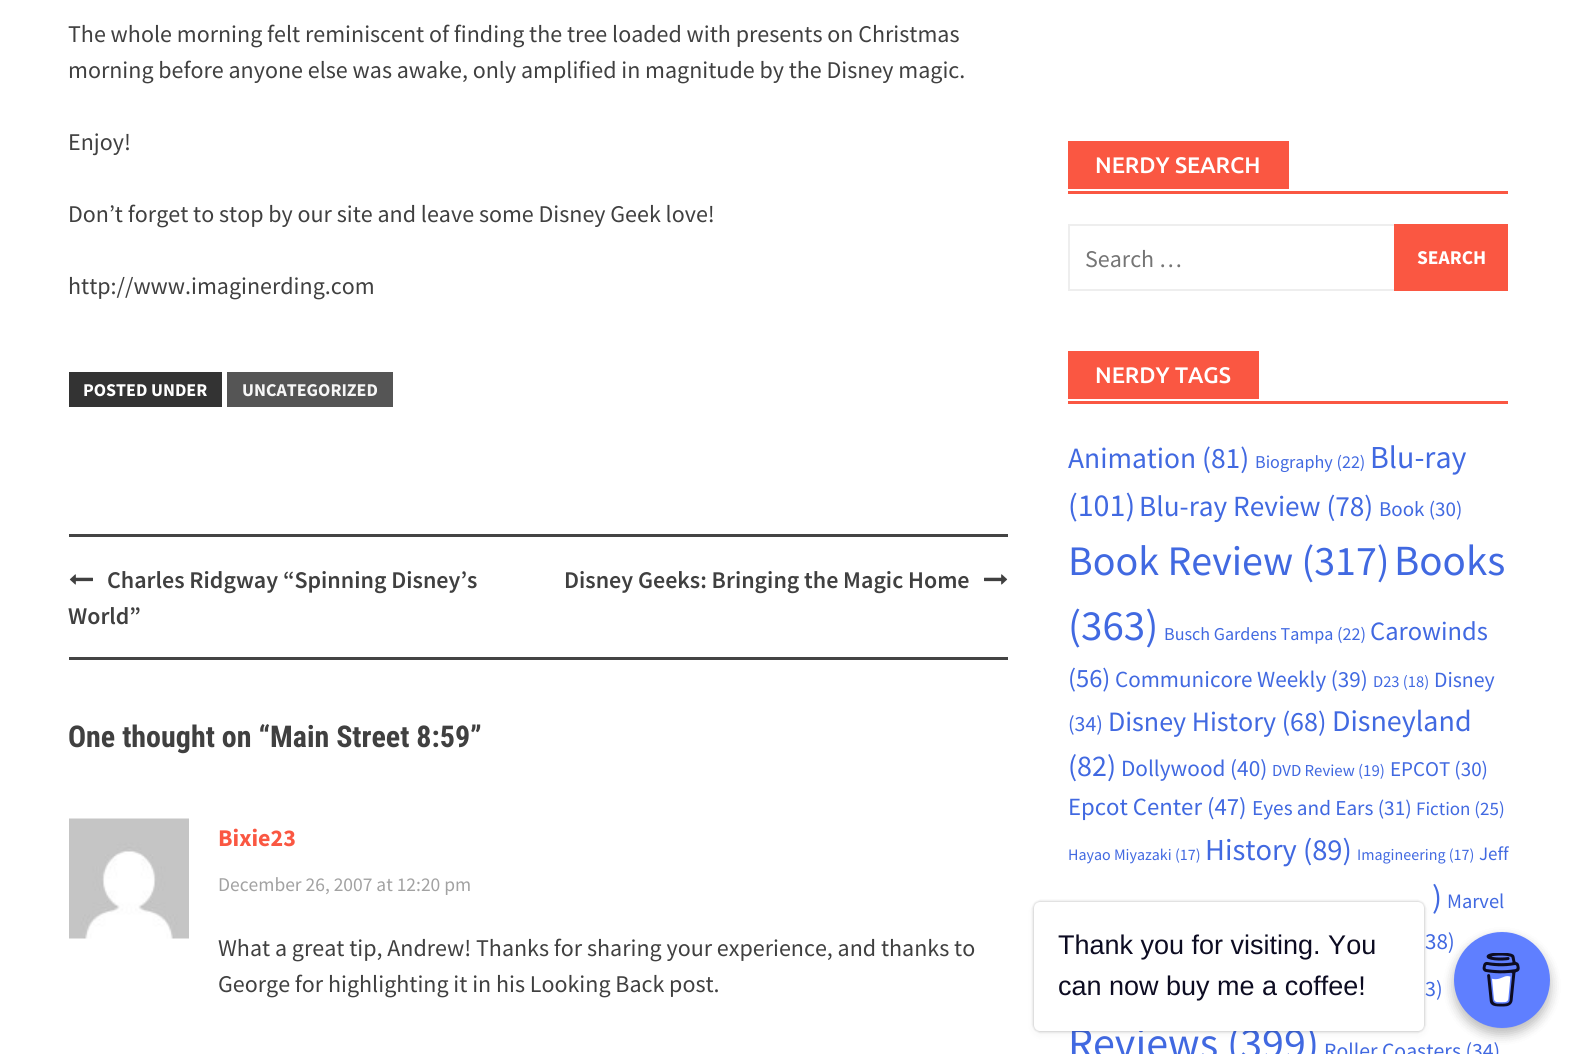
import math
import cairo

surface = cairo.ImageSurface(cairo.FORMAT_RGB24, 1576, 1054)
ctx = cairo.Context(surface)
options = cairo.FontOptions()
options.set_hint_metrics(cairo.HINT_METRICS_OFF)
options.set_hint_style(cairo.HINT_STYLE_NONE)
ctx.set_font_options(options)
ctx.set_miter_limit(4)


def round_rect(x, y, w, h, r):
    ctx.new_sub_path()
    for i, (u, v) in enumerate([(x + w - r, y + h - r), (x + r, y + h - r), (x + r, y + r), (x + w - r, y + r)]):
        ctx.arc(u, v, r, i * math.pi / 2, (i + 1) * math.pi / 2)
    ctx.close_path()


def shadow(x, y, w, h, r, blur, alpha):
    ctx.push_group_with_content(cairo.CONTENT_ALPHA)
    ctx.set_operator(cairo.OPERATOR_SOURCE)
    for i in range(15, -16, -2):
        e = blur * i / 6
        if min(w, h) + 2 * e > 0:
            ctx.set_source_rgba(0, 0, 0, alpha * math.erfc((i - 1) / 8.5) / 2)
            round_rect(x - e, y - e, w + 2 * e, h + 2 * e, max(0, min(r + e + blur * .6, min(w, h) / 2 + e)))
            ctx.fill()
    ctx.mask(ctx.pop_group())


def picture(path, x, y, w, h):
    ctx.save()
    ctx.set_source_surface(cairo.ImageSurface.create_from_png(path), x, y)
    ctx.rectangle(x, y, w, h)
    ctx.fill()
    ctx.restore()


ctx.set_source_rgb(1, 1, 1)
ctx.paint()
ctx.select_font_face("Source Sans Pro")
ctx.set_font_size(24)
ctx.set_source_rgb(0.251, 0.251, 0.251)
ctx.move_to(68, 42)
ctx.show_text("The whole morning felt reminiscent of finding the tree loaded with presents on Christmas")
ctx.move_to(68, 78)
ctx.show_text("morning before anyone else was awake, only amplified in magnitude by the Disney magic.")
ctx.move_to(68, 150)
ctx.show_text("Enjoy!")
ctx.move_to(68, 222)
ctx.show_text("Don’t forget to stop by our site and leave some Disney Geek love!")
ctx.move_to(68, 294)
ctx.show_text("http://www.imaginerding.com")
ctx.set_source_rgb(0.2, 0.2, 0.2)
ctx.rectangle(69, 372, 153, 35)
ctx.fill()
ctx.select_font_face("Source Sans Pro", cairo.FONT_SLANT_NORMAL, cairo.FONT_WEIGHT_BOLD)
ctx.set_font_size(18)
ctx.set_source_rgb(1, 1, 1)
ctx.move_to(83, 396)
ctx.show_text("POSTED UNDER")
ctx.set_source_rgb(0.333, 0.333, 0.333)
ctx.rectangle(227, 372, 166, 35)
ctx.fill()
ctx.set_source_rgb(0.961, 0.961, 0.961)
ctx.move_to(242, 396)
ctx.show_text("UNCATEGORIZED")
ctx.set_source_rgb(0.267, 0.267, 0.267)
ctx.rectangle(69, 534, 939, 3)
ctx.fill()
ctx.rectangle(69, 657, 939, 3)
ctx.fill()
picture("img1.png", 69, 574, 24, 11)
ctx.select_font_face("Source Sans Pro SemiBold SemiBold")
ctx.set_font_size(24)
ctx.set_source_rgb(0.251, 0.251, 0.251)
ctx.move_to(107, 588)
ctx.show_text("Charles Ridgway “Spinning Disney’s")
ctx.move_to(68, 624)
ctx.show_text("World”")
ctx.move_to(564, 588)
ctx.show_text("Disney Geeks: Bringing the Magic Home")
picture("img2.png", 984, 574, 24, 11)
ctx.select_font_face("Roboto Condensed", cairo.FONT_SLANT_NORMAL, cairo.FONT_WEIGHT_BOLD)
ctx.set_font_size(30)
ctx.move_to(68, 747)
ctx.show_text("One thought on “Main Street 8:59”")
picture("img3.png", 69, 818, 120, 121)
ctx.select_font_face("Source Sans Pro", cairo.FONT_SLANT_NORMAL, cairo.FONT_WEIGHT_BOLD)
ctx.set_font_size(24)
ctx.set_source_rgb(0.98, 0.341, 0.259)
ctx.move_to(218, 846)
ctx.show_text("Bixie23")
ctx.select_font_face("Source Sans Pro")
ctx.set_font_size(19.5)
ctx.set_source_rgb(0.635, 0.635, 0.635)
ctx.move_to(218, 891)
ctx.show_text("December 26, 2007 at 12:20 pm")
ctx.set_font_size(24)
ctx.set_source_rgb(0.251, 0.251, 0.251)
ctx.move_to(218, 956)
ctx.show_text("What a great tip, Andrew! Thanks for sharing your experience, and thanks to")
ctx.move_to(218, 992)
ctx.show_text("George for highlighting it in his Looking Back post.")
ctx.set_source_rgb(0.98, 0.341, 0.259)
ctx.rectangle(1068, 191, 440, 3)
ctx.fill()
ctx.rectangle(1068, 141, 221, 48)
ctx.fill()
ctx.select_font_face("Ubuntu Medium")
ctx.set_font_size(22.5)
ctx.set_source_rgb(1, 1, 1)
ctx.move_to(1095, 173)
ctx.show_text("NERDY SEARCH")
ctx.rectangle(1069, 225, 438, 65)
ctx.set_source_rgb(0.933, 0.933, 0.933)
ctx.stroke()
ctx.select_font_face("Source Sans Pro")
ctx.set_font_size(24)
ctx.set_source_rgb(0.459, 0.459, 0.459)
ctx.move_to(1085, 267)
ctx.show_text("Search …")
ctx.set_source_rgb(0.98, 0.341, 0.259)
ctx.rectangle(1394, 224, 114, 67)
ctx.fill()
ctx.select_font_face("Source Sans Pro", cairo.FONT_SLANT_NORMAL, cairo.FONT_WEIGHT_BOLD)
ctx.set_font_size(19.5)
ctx.set_source_rgb(1, 1, 1)
ctx.move_to(1417, 264)
ctx.show_text("SEARCH")
ctx.set_source_rgb(0.98, 0.341, 0.259)
ctx.rectangle(1068, 401, 440, 3)
ctx.fill()
ctx.rectangle(1068, 351, 191, 48)
ctx.fill()
ctx.select_font_face("Ubuntu Medium")
ctx.set_font_size(22.5)
ctx.set_source_rgb(1, 1, 1)
ctx.move_to(1095, 383)
ctx.show_text("NERDY TAGS")
ctx.select_font_face("Source Sans Pro")
ctx.set_font_size(29.5)
ctx.set_source_rgb(0.255, 0.412, 0.882)
ctx.move_to(1068, 468)
ctx.show_text("Animation (81)")
ctx.set_font_size(18.1)
ctx.move_to(1255, 468)
ctx.show_text("Biography (22)")
ctx.set_font_size(32)
ctx.move_to(1370, 468)
ctx.show_text("Blu-ray")
ctx.move_to(1068, 516)
ctx.show_text("(101)")
ctx.set_font_size(29.25)
ctx.move_to(1139, 516)
ctx.show_text("Blu-ray Review (78)")
ctx.set_font_size(21)
ctx.move_to(1379, 516)
ctx.show_text("Book (30)")
ctx.set_font_size(42)
ctx.move_to(1068, 575)
ctx.show_text("Book Review (317)")
ctx.set_font_size(43)
ctx.move_to(1394, 575)
ctx.show_text("Books")
ctx.move_to(1068, 640)
ctx.show_text("(363)")
ctx.set_font_size(18.1)
ctx.move_to(1164, 640)
ctx.show_text("Busch Gardens Tampa (22)")
ctx.set_font_size(26.5)
ctx.move_to(1370, 640)
ctx.show_text("Carowinds")
ctx.move_to(1068, 687)
ctx.show_text("(56)")
ctx.set_font_size(23.1)
ctx.move_to(1115, 687)
ctx.show_text("Communicore Weekly (39)")
ctx.set_font_size(16.5)
ctx.move_to(1373, 687)
ctx.show_text("D23 (18)")
ctx.set_font_size(21.75)
ctx.move_to(1434, 687)
ctx.show_text("Disney")
ctx.move_to(1068, 731)
ctx.show_text("(34)")
ctx.set_font_size(28)
ctx.move_to(1108, 731)
ctx.show_text("Disney History (68)")
ctx.set_font_size(30)
ctx.move_to(1332, 731)
ctx.show_text("Disneyland")
ctx.move_to(1068, 776)
ctx.show_text("(82)")
ctx.set_font_size(23.25)
ctx.move_to(1121, 776)
ctx.show_text("Dollywood (40)")
ctx.set_font_size(16.75)
ctx.move_to(1272, 776)
ctx.show_text("DVD Review (19)")
ctx.set_font_size(21)
ctx.move_to(1390, 776)
ctx.show_text("EPCOT (30)")
ctx.set_font_size(24.75)
ctx.move_to(1068, 815)
ctx.show_text("Epcot Center (47)")
ctx.set_font_size(21.25)
ctx.move_to(1252, 815)
ctx.show_text("Eyes and Ears (31)")
ctx.set_font_size(19)
ctx.move_to(1416, 815)
ctx.show_text("Fiction (25)")
ctx.set_font_size(16)
ctx.move_to(1068, 860)
ctx.show_text("Hayao Miyazaki (17)")
ctx.set_font_size(30.5)
ctx.move_to(1205, 860)
ctx.show_text("History (89)")
ctx.set_font_size(16)
ctx.move_to(1357, 860)
ctx.show_text("Imagineering (17)")
ctx.set_font_size(19)
ctx.move_to(1479, 860)
ctx.show_text("Jeff")
ctx.set_font_size(33)
ctx.move_to(1432, 908)
ctx.show_text(")")
ctx.set_font_size(20.5)
ctx.move_to(1447, 908)
ctx.show_text("Marvel")
ctx.set_font_size(23)
ctx.move_to(1425, 949)
ctx.show_text("38)")
ctx.set_font_size(22)
ctx.move_to(1425, 996)
ctx.show_text("3)")
ctx.set_font_size(44)
ctx.move_to(1068, 1058)
ctx.show_text("Reviews (399)")
ctx.set_font_size(21.75)
ctx.move_to(1324, 1058)
ctx.show_text("Roller Coasters (34)")
ctx.set_source_rgb(0, 0, 0)
shadow(1034, 902, 390, 129, 6, 1.5, 0.15)
shadow(1034, 905, 390, 129, 6, 4, 0.05)
shadow(1454, 938, 96, 96, 48, 6, 0.15)
shadow(1034, 902, 390, 129, 6, 1.5, 0.15)
ctx.set_source_rgb(1, 1, 1)
round_rect(1034, 902, 390, 129, 6)
ctx.fill()
ctx.select_font_face("Liberation Sans")
ctx.set_font_size(27)
ctx.set_source_rgb(0.051, 0.047, 0.133)
ctx.move_to(1058, 954)
ctx.show_text("Thank you for visiting. You")
ctx.move_to(1058, 995)
ctx.show_text("can now buy me a coffee!")
ctx.set_source_rgb(0, 0, 0)
shadow(1454, 938, 96, 96, 48, 6, 0.15)
ctx.set_source_rgb(0.373, 0.498, 1)
ctx.arc(1502, 980, 48, 0, 2 * math.pi)
ctx.fill()
picture("img4.png", 1482, 953, 38, 54)
surface.write_to_png("page.png")
